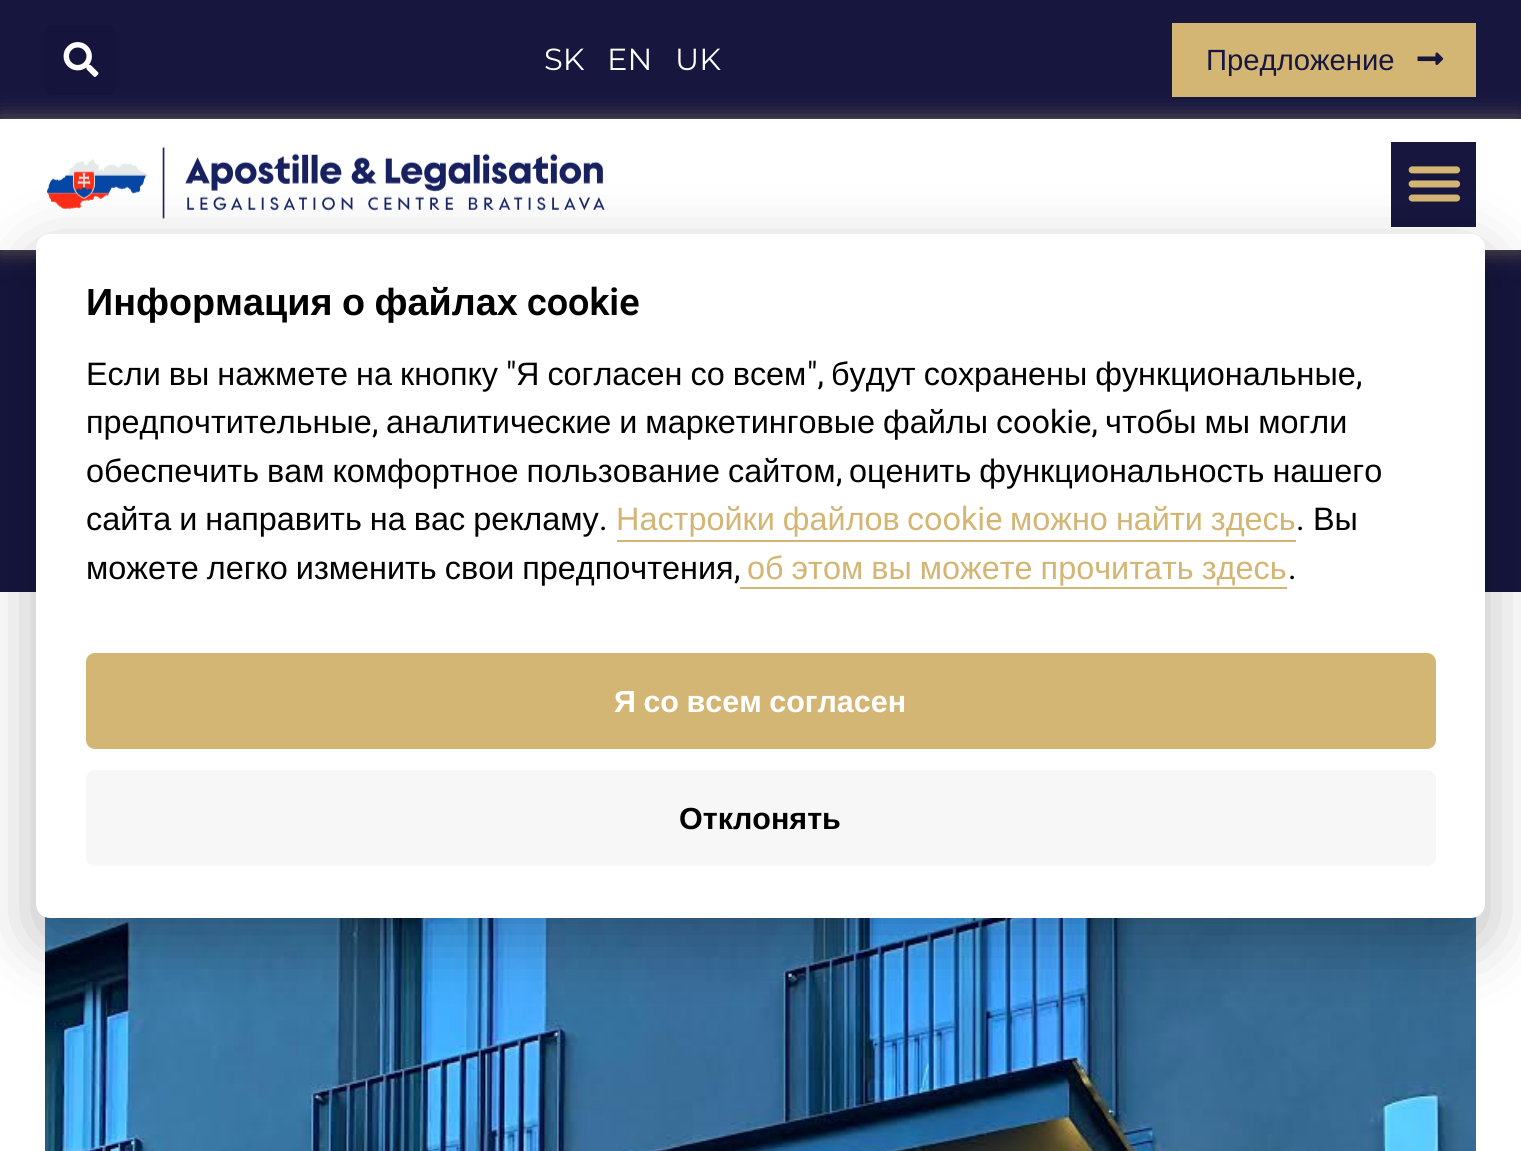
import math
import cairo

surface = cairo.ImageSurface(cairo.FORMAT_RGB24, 1521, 1151)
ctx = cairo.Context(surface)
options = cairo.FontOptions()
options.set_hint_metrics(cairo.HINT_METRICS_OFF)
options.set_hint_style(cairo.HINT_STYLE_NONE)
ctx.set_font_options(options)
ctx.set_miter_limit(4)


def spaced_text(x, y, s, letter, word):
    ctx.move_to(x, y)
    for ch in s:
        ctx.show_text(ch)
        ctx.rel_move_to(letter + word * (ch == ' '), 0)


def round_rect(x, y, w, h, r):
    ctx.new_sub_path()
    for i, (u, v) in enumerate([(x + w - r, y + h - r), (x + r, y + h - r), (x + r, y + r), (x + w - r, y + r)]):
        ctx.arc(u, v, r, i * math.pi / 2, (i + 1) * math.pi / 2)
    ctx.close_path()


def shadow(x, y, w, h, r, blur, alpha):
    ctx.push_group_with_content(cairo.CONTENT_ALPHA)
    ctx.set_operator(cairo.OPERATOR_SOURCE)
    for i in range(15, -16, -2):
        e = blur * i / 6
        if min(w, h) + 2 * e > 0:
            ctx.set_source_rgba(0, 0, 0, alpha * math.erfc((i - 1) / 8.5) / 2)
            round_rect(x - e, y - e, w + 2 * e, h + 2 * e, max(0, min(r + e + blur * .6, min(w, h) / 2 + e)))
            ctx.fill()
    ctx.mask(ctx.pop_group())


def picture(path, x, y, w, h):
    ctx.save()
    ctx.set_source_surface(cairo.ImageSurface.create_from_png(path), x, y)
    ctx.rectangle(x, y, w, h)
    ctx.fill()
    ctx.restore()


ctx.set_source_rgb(1, 1, 1)
ctx.paint()
ctx.set_source_rgb(0.086, 0.086, 0.247)
ctx.rectangle(0, 250, 1521, 342)
ctx.fill()
ctx.set_source_rgb(0, 0, 0)
shadow(0, 11, 1521, 250, 0, 34, 0.1)
ctx.set_source_rgb(0.086, 0.086, 0.247)
ctx.rectangle(0, 0, 1521, 119)
ctx.fill()
ctx.set_source_rgb(0.082, 0.082, 0.235)
round_rect(45, 25, 70, 70, 7)
ctx.fill()
picture("img1.png", 63, 42, 36, 35)
ctx.select_font_face("Montserrat")
ctx.set_font_size(30.5)
ctx.set_source_rgb(1, 1, 1)
ctx.move_to(544, 70)
ctx.show_text("SK")
ctx.move_to(607, 70)
ctx.show_text("EN")
ctx.move_to(675, 70)
ctx.show_text("UK")
ctx.set_source_rgb(0.827, 0.71, 0.455)
ctx.rectangle(1172, 23, 304, 74)
ctx.fill()
ctx.select_font_face("Liberation Sans")
ctx.set_font_size(29.25)
ctx.set_source_rgb(0.086, 0.086, 0.247)
ctx.move_to(1206, 70)
ctx.show_text("Предложение")
picture("img2.png", 1417, 52, 27, 13)
ctx.set_source_rgb(0.827, 0.71, 0.455)
shadow(0, 119, 1521, 131, 0, 11, 0.46)
ctx.set_source_rgb(1, 1, 1)
ctx.rectangle(0, 119, 1521, 131)
ctx.fill()
picture("img3.png", 47, 146, 558, 73)
ctx.set_source_rgb(0.086, 0.086, 0.247)
ctx.rectangle(1391, 142, 85, 85)
ctx.fill()
picture("img4.png", 1408, 166, 53, 36)
picture("img5.png", 45, 917, 1431, 234)
ctx.set_source_rgb(0.008, 0.008, 0.012)
shadow(36, 257, 1449, 684, 14, 34, 0.28)
ctx.set_source_rgb(1, 1, 1)
round_rect(36, 234, 1449, 684, 14)
ctx.fill()
ctx.select_font_face("Liberation Sans", cairo.FONT_SLANT_NORMAL, cairo.FONT_WEIGHT_BOLD)
ctx.set_font_size(37.75)
ctx.set_source_rgb(0, 0, 0)
spaced_text(86, 315, "Информация о файлах", 0, -1)
ctx.select_font_face("Roboto SemiBold")
ctx.move_to(527, 315)
ctx.show_text("cookie")
ctx.select_font_face("Liberation Sans")
ctx.set_font_size(32.4)
spaced_text(86, 385, "Если вы нажмете на кнопку", 0, -1)
ctx.select_font_face("Roboto")
ctx.move_to(506, 385)
ctx.show_text("\"")
ctx.select_font_face("Liberation Sans")
spaced_text(516, 385, "Я согласен со всем", 0, -1)
ctx.select_font_face("Roboto")
ctx.move_to(807, 385)
ctx.show_text("\",")
ctx.select_font_face("Liberation Sans")
spaced_text(831, 385, "будут сохранены функциональные", 0, -1)
ctx.select_font_face("Roboto")
ctx.move_to(1356, 385)
ctx.show_text(",")
ctx.select_font_face("Liberation Sans")
ctx.move_to(86, 433)
ctx.show_text("предпочтительные")
ctx.select_font_face("Roboto")
ctx.move_to(372, 433)
ctx.show_text(",")
ctx.select_font_face("Liberation Sans")
spaced_text(386, 433, "аналитические и маркетинговые файлы", 0, -1)
ctx.select_font_face("Roboto")
ctx.move_to(996, 433)
ctx.show_text("cookie,")
ctx.select_font_face("Liberation Sans")
spaced_text(1105, 433, "чтобы мы могли", 0, -1)
spaced_text(86, 482, "обеспечить вам комфортное пользование сайтом", 0, -1)
ctx.select_font_face("Roboto")
ctx.move_to(836, 482)
ctx.show_text(",")
ctx.select_font_face("Liberation Sans")
spaced_text(849, 482, "оценить функциональность нашего", 0, -1)
spaced_text(86, 530, "сайта и направить на вас рекламу", 0, -1)
ctx.select_font_face("Roboto")
ctx.move_to(599, 530)
ctx.show_text(".")
ctx.select_font_face("Liberation Sans")
ctx.set_source_rgb(0.827, 0.71, 0.455)
spaced_text(616, 530, "Настройки файлов", 0, -1)
ctx.rectangle(617, 540, 679, 2)
ctx.fill()
ctx.select_font_face("Roboto")
ctx.move_to(907, 530)
ctx.show_text("cookie")
ctx.select_font_face("Liberation Sans")
spaced_text(1010, 530, "можно найти здесь", 0, -1)
ctx.select_font_face("Roboto")
ctx.set_source_rgb(0, 0, 0)
ctx.move_to(1296, 530)
ctx.show_text(".")
ctx.select_font_face("Liberation Sans")
ctx.move_to(1313, 530)
ctx.show_text("Вы")
spaced_text(86, 579, "можете легко изменить свои предпочтения", 0, -1)
ctx.select_font_face("Roboto")
ctx.move_to(734, 579)
ctx.show_text(",")
ctx.select_font_face("Liberation Sans")
ctx.set_source_rgb(0.827, 0.71, 0.455)
spaced_text(747, 579, "об этом вы можете прочитать здесь", 0, -1)
ctx.rectangle(740, 587, 547, 2)
ctx.fill()
ctx.select_font_face("Roboto")
ctx.set_source_rgb(0, 0, 0)
ctx.move_to(1288, 579)
ctx.show_text(".")
ctx.set_source_rgb(0.827, 0.71, 0.455)
round_rect(86, 653, 1350, 96, 9)
ctx.fill()
ctx.select_font_face("Liberation Sans", cairo.FONT_SLANT_NORMAL, cairo.FONT_WEIGHT_BOLD)
ctx.set_font_size(30.5)
ctx.set_source_rgb(1, 1, 1)
spaced_text(614, 712, "Я со всем согласен", 0, -1)
ctx.set_source_rgb(0.965, 0.965, 0.965)
round_rect(86, 770, 1350, 96, 9)
ctx.fill()
ctx.set_source_rgb(0, 0, 0)
ctx.move_to(679, 829)
ctx.show_text("Отклонять")
surface.write_to_png("page.png")
